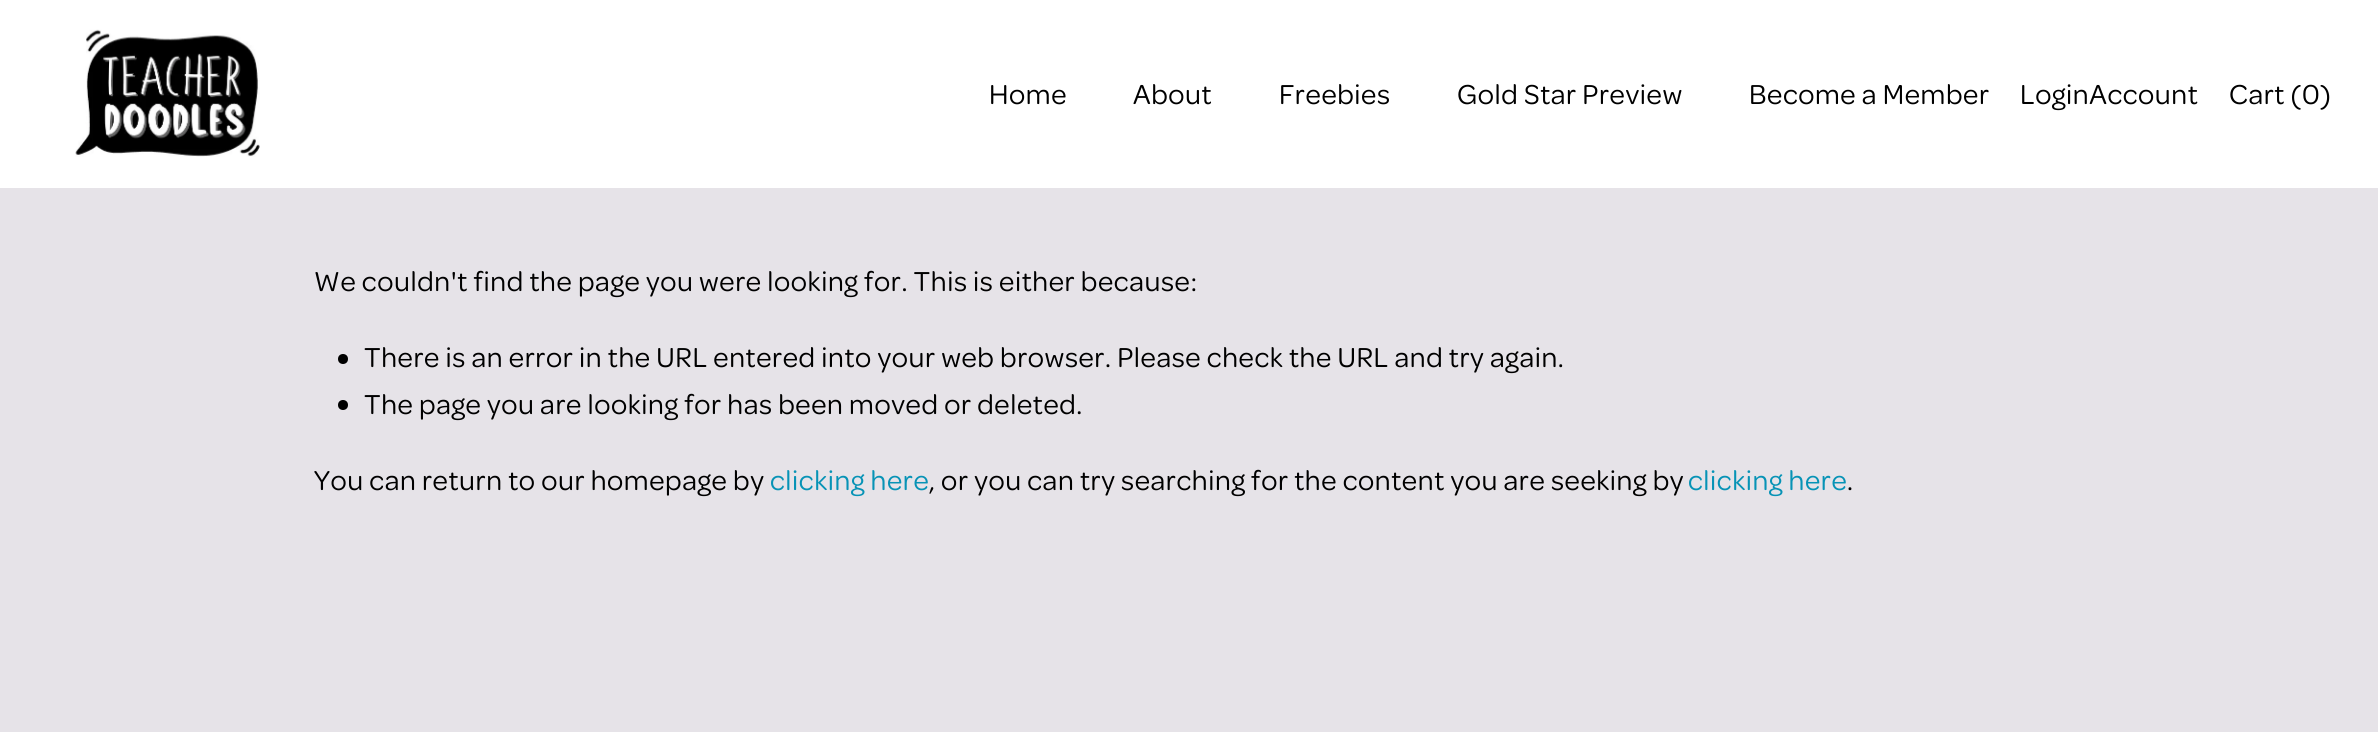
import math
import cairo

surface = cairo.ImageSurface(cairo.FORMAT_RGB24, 2378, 732)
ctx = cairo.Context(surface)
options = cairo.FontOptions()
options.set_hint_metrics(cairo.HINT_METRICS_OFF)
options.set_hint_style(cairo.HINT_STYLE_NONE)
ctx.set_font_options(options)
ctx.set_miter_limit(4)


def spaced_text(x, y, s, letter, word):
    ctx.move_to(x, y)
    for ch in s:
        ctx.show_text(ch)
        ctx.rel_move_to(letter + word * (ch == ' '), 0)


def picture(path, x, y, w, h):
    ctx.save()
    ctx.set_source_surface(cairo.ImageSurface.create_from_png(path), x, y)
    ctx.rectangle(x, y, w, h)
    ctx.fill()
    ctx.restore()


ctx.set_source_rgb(0.902, 0.89, 0.91)
ctx.paint()
ctx.set_source_rgb(1, 1, 1)
ctx.rectangle(0, 0, 2378, 188)
ctx.fill()
picture("img1.png", 75, 29, 185, 128)
ctx.select_font_face("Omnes")
ctx.set_font_size(29.25)
ctx.set_source_rgb(0, 0, 0)
spaced_text(989, 104, "Home", 0.6, 0)
spaced_text(1133, 104, "About", 0.6, 0)
spaced_text(1279, 104, "Freebies", 0.6, 0)
spaced_text(1457, 104, "Gold Star Preview", 0.6, 0)
spaced_text(1749, 104, "Become a Member", 0.6, 0)
spaced_text(2020, 104, "LoginAccount", 0.6, 0)
spaced_text(2229, 104, "Cart (0)", 0.6, 0)
spaced_text(314, 291, "We couldn't find the page you were looking for. This is either because:", 0.6, 0)
ctx.new_path()
ctx.arc(343, 359, 5, 0, 2 * math.pi)
ctx.fill()
spaced_text(364, 367, "There is an error in the URL entered into your web browser. Please check the URL and try again.", 0.6, 0)
ctx.new_path()
ctx.arc(343, 405, 5, 0, 2 * math.pi)
ctx.fill()
spaced_text(364, 414, "The page you are looking for has been moved or deleted.", 0.6, 0)
spaced_text(314, 490, "You can return to our homepage by", 0.6, 0)
ctx.set_source_rgb(0.031, 0.576, 0.714)
spaced_text(770, 490, "clicking here", 0.6, 0)
ctx.set_source_rgb(0, 0, 0)
spaced_text(929, 490, ", or you can try searching for the content you are seeking by", 0.6, 0)
ctx.set_source_rgb(0.031, 0.576, 0.714)
spaced_text(1688, 490, "clicking here", 0.6, 0)
ctx.set_source_rgb(0, 0, 0)
spaced_text(1847, 490, ".", 0.6, 0)
surface.write_to_png("page.png")
